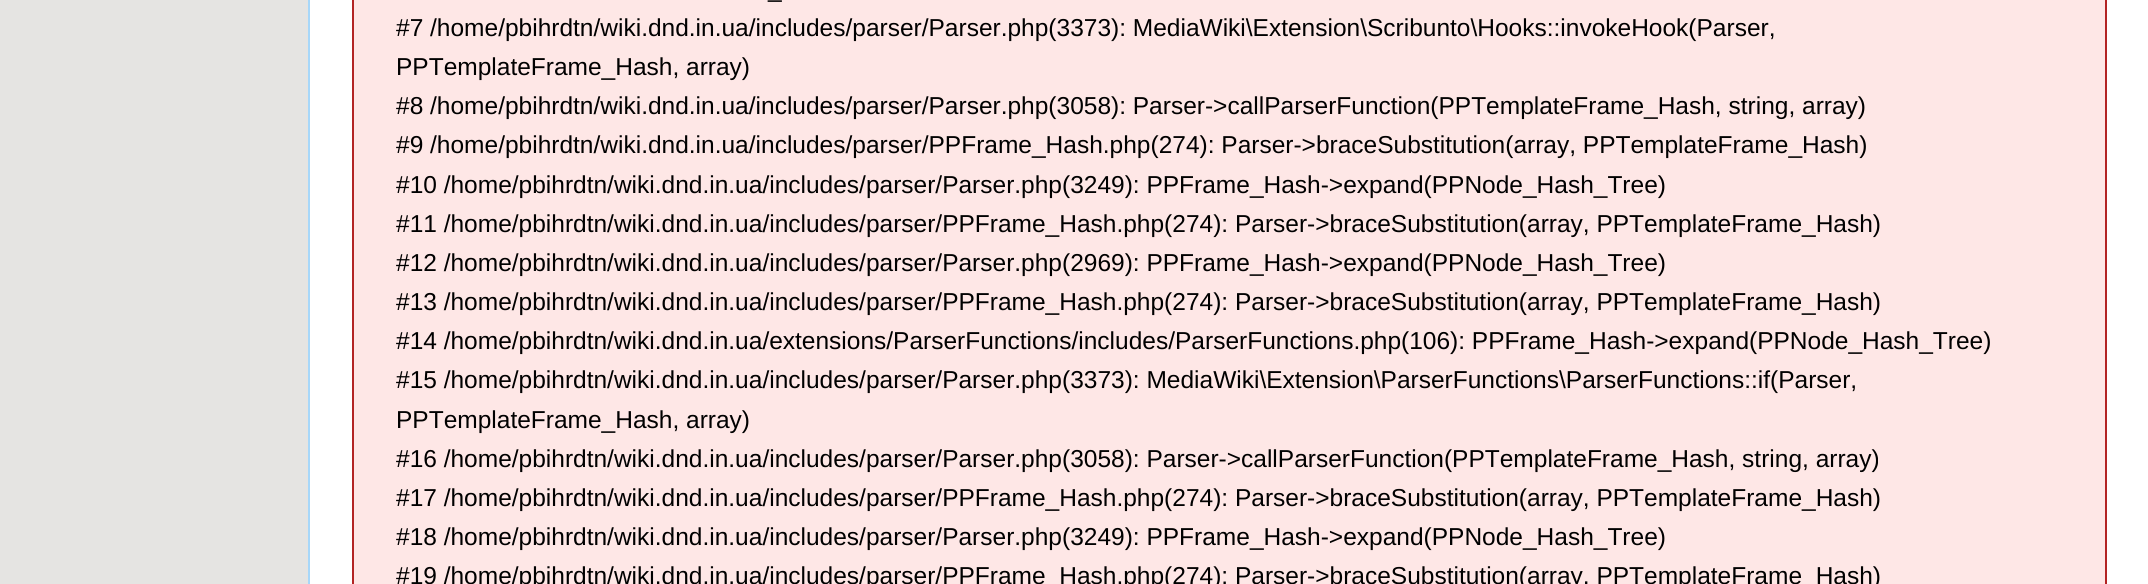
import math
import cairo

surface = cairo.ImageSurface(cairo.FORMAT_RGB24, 2148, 584)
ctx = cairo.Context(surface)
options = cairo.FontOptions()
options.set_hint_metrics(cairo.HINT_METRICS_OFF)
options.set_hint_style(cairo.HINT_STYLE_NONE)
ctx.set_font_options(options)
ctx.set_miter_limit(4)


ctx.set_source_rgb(0.898, 0.894, 0.886)
ctx.paint()
ctx.set_source_rgb(1, 1, 1)
ctx.rectangle(310, 0, 1838, 584)
ctx.fill()
ctx.set_source_rgb(0.655, 0.843, 0.976)
ctx.rectangle(308, 0, 2, 584)
ctx.fill()
ctx.set_source_rgb(0.996, 0.906, 0.902)
ctx.rectangle(353, -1, 1753, 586)
ctx.fill_preserve()
ctx.set_source_rgb(0.702, 0.141, 0.141)
ctx.stroke()
ctx.select_font_face("Liberation Sans")
ctx.set_font_size(24.5)
ctx.set_source_rgb(0, 0, 0)
ctx.move_to(768, -3)
ctx.show_text("_")
ctx.move_to(396, 36)
ctx.show_text("#7 /home/pbihrdtn/wiki.dnd.in.ua/includes/parser/Parser.php(3373): MediaWiki\\Extension\\Scribunto\\Hooks::invokeHook(Parser,")
ctx.move_to(396, 75)
ctx.show_text("PPTemplateFrame_Hash, array)")
ctx.move_to(396, 114)
ctx.show_text("#8 /home/pbihrdtn/wiki.dnd.in.ua/includes/parser/Parser.php(3058): Parser->callParserFunction(PPTemplateFrame_Hash, string, array)")
ctx.move_to(396, 153)
ctx.show_text("#9 /home/pbihrdtn/wiki.dnd.in.ua/includes/parser/PPFrame_Hash.php(274): Parser->braceSubstitution(array, PPTemplateFrame_Hash)")
ctx.move_to(396, 193)
ctx.show_text("#10 /home/pbihrdtn/wiki.dnd.in.ua/includes/parser/Parser.php(3249): PPFrame_Hash->expand(PPNode_Hash_Tree)")
ctx.move_to(396, 232)
ctx.show_text("#11 /home/pbihrdtn/wiki.dnd.in.ua/includes/parser/PPFrame_Hash.php(274): Parser->braceSubstitution(array, PPTemplateFrame_Hash)")
ctx.move_to(396, 271)
ctx.show_text("#12 /home/pbihrdtn/wiki.dnd.in.ua/includes/parser/Parser.php(2969): PPFrame_Hash->expand(PPNode_Hash_Tree)")
ctx.move_to(396, 310)
ctx.show_text("#13 /home/pbihrdtn/wiki.dnd.in.ua/includes/parser/PPFrame_Hash.php(274): Parser->braceSubstitution(array, PPTemplateFrame_Hash)")
ctx.move_to(396, 349)
ctx.show_text("#14 /home/pbihrdtn/wiki.dnd.in.ua/extensions/ParserFunctions/includes/ParserFunctions.php(106): PPFrame_Hash->expand(PPNode_Hash_Tree)")
ctx.move_to(396, 388)
ctx.show_text("#15 /home/pbihrdtn/wiki.dnd.in.ua/includes/parser/Parser.php(3373): MediaWiki\\Extension\\ParserFunctions\\ParserFunctions::if(Parser,")
ctx.move_to(396, 428)
ctx.show_text("PPTemplateFrame_Hash, array)")
ctx.move_to(396, 467)
ctx.show_text("#16 /home/pbihrdtn/wiki.dnd.in.ua/includes/parser/Parser.php(3058): Parser->callParserFunction(PPTemplateFrame_Hash, string, array)")
ctx.move_to(396, 506)
ctx.show_text("#17 /home/pbihrdtn/wiki.dnd.in.ua/includes/parser/PPFrame_Hash.php(274): Parser->braceSubstitution(array, PPTemplateFrame_Hash)")
ctx.move_to(396, 545)
ctx.show_text("#18 /home/pbihrdtn/wiki.dnd.in.ua/includes/parser/Parser.php(3249): PPFrame_Hash->expand(PPNode_Hash_Tree)")
ctx.move_to(396, 584)
ctx.show_text("#19 /home/pbihrdtn/wiki.dnd.in.ua/includes/parser/PPFrame_Hash.php(274): Parser->braceSubstitution(array, PPTemplateFrame_Hash)")
surface.write_to_png("page.png")
